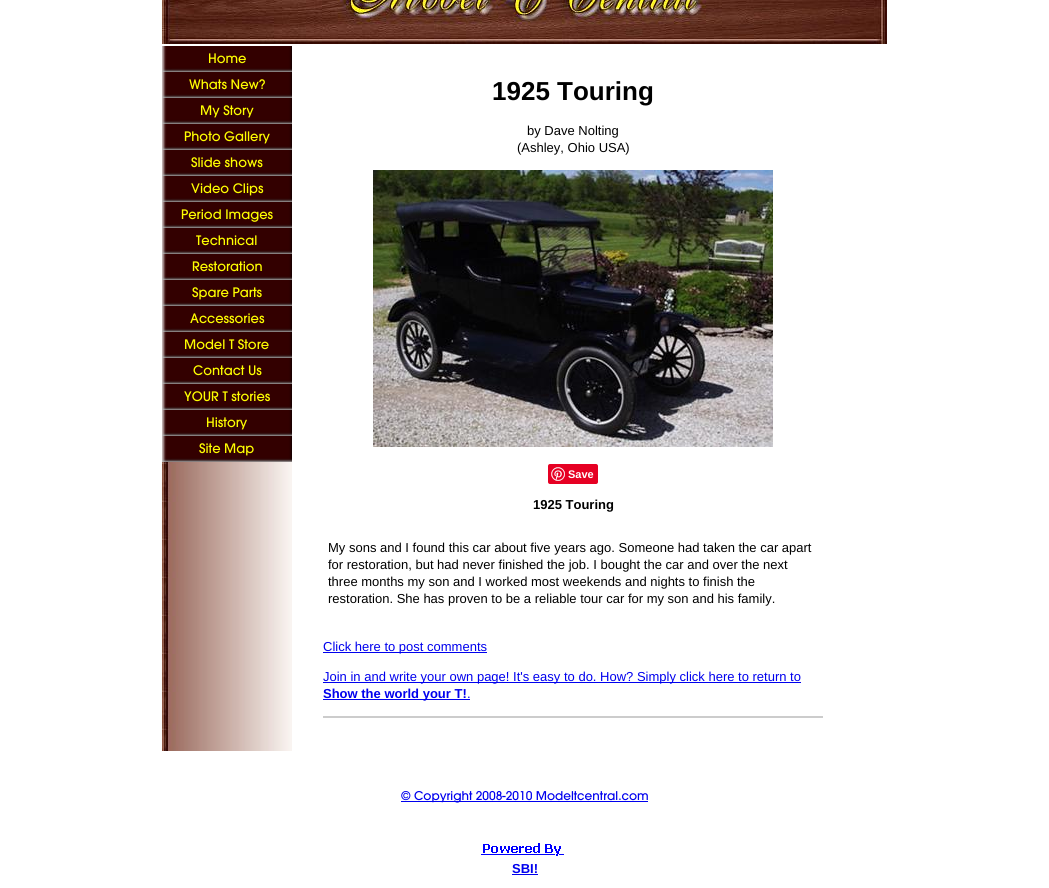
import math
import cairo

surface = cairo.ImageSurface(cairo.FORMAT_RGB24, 1049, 888)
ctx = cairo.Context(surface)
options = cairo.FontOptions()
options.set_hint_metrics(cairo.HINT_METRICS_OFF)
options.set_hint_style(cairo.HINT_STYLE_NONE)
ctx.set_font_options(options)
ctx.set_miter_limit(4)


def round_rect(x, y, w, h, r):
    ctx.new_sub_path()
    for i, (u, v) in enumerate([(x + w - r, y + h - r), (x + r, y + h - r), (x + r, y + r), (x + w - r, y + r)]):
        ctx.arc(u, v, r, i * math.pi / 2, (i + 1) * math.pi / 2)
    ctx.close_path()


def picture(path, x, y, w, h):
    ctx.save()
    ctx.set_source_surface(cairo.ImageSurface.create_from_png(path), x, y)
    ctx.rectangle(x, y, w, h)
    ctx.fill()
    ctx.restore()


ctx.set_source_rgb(1, 1, 1)
ctx.paint()
picture("img1.png", 162, 0, 725, 44)
picture("img2.png", 162, 462, 130, 289)
picture("img3.png", 162, 46, 130, 26)
ctx.select_font_face("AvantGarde")
ctx.set_font_size(13)
ctx.set_source_rgb(1, 1, 0)
ctx.move_to(208, 63)
ctx.show_text("Home")
picture("img3.png", 162, 72, 130, 26)
ctx.move_to(189, 89)
ctx.show_text("Whats New?")
picture("img3.png", 162, 98, 130, 26)
ctx.move_to(200, 115)
ctx.show_text("My Story")
picture("img3.png", 162, 124, 130, 26)
ctx.move_to(184, 141)
ctx.show_text("Photo Gallery")
picture("img3.png", 162, 150, 130, 26)
ctx.move_to(191, 167)
ctx.show_text("Slide shows")
picture("img3.png", 162, 176, 130, 26)
ctx.move_to(191, 193)
ctx.show_text("Video Clips")
picture("img3.png", 162, 202, 130, 26)
ctx.move_to(181, 219)
ctx.show_text("Period Images")
picture("img3.png", 162, 228, 130, 26)
ctx.move_to(196, 245)
ctx.show_text("Technical")
picture("img3.png", 162, 254, 130, 26)
ctx.move_to(192, 271)
ctx.show_text("Restoration")
picture("img3.png", 162, 280, 130, 26)
ctx.move_to(192, 297)
ctx.show_text("Spare Parts")
picture("img3.png", 162, 306, 130, 26)
ctx.move_to(190, 323)
ctx.show_text("Accessories")
picture("img3.png", 162, 332, 130, 26)
ctx.move_to(184, 349)
ctx.show_text("Model T Store")
picture("img3.png", 162, 358, 130, 26)
ctx.move_to(193, 375)
ctx.show_text("Contact Us")
picture("img3.png", 162, 384, 130, 26)
ctx.move_to(184, 401)
ctx.show_text("YOUR T stories")
picture("img3.png", 162, 410, 130, 26)
ctx.move_to(206, 427)
ctx.show_text("History")
picture("img3.png", 162, 436, 130, 26)
ctx.move_to(199, 453)
ctx.show_text("Site Map")
ctx.select_font_face("Liberation Sans", cairo.FONT_SLANT_NORMAL, cairo.FONT_WEIGHT_BOLD)
ctx.set_font_size(26)
ctx.set_source_rgb(0, 0, 0)
ctx.move_to(492, 100)
ctx.show_text("1925 Touring")
ctx.select_font_face("Liberation Sans")
ctx.set_font_size(13)
ctx.move_to(527, 135)
ctx.show_text("by Dave Nolting")
ctx.move_to(517, 152)
ctx.show_text("(Ashley, Ohio USA)")
picture("img4.png", 373, 170, 400, 277)
ctx.set_source_rgb(0.902, 0, 0.137)
round_rect(548, 464, 50, 20, 2)
ctx.fill()
picture("img5.png", 551, 467, 14, 14)
ctx.select_font_face("Liberation Sans", cairo.FONT_SLANT_NORMAL, cairo.FONT_WEIGHT_BOLD)
ctx.set_font_size(11)
ctx.set_source_rgb(1, 1, 1)
ctx.move_to(568, 478)
ctx.show_text("Save")
ctx.set_font_size(13)
ctx.set_source_rgb(0, 0, 0)
ctx.move_to(533, 509)
ctx.show_text("1925 Touring")
ctx.select_font_face("Liberation Sans")
ctx.move_to(328, 552)
ctx.show_text("My sons and I found this car about five years ago. Someone had taken the car apart")
ctx.move_to(328, 569)
ctx.show_text("for restoration, but had never finished the job. I bought the car and over the next")
ctx.move_to(328, 586)
ctx.show_text("three months my son and I worked most weekends and nights to finish the")
ctx.move_to(328, 603)
ctx.show_text("restoration. She has proven to be a reliable tour car for my son and his family.")
ctx.set_source_rgb(0, 0, 0.933)
ctx.rectangle(323, 652, 164, 1)
ctx.fill()
ctx.move_to(323, 651)
ctx.show_text("Click here to post comments")
ctx.rectangle(323, 682, 478, 1)
ctx.fill()
ctx.move_to(323, 681)
ctx.show_text("Join in and write your own page! It's easy to do. How? Simply click here to return to")
ctx.rectangle(323, 699, 147, 1)
ctx.fill()
ctx.select_font_face("Liberation Sans", cairo.FONT_SLANT_NORMAL, cairo.FONT_WEIGHT_BOLD)
ctx.move_to(323, 698)
ctx.show_text("Show the world your T!")
ctx.select_font_face("Liberation Sans")
ctx.move_to(467, 698)
ctx.show_text(".")
ctx.set_source_rgb(0.8, 0.8, 0.8)
ctx.rectangle(323, 716, 500, 2)
ctx.fill()
ctx.set_source_rgb(0, 0, 0.933)
ctx.rectangle(401, 801, 247, 1)
ctx.fill()
ctx.select_font_face("AvantGarde")
ctx.set_font_size(12)
ctx.move_to(401, 800)
ctx.show_text("© Copyright 2008-2010 Modeltcentral.com")
picture("img6.png", 481, 843, 83, 13)
ctx.select_font_face("Liberation Sans", cairo.FONT_SLANT_NORMAL, cairo.FONT_WEIGHT_BOLD)
ctx.set_font_size(13)
ctx.move_to(512, 873)
ctx.show_text("SBI!")
ctx.rectangle(512, 874, 26, 1)
ctx.fill()
surface.write_to_png("page.png")
